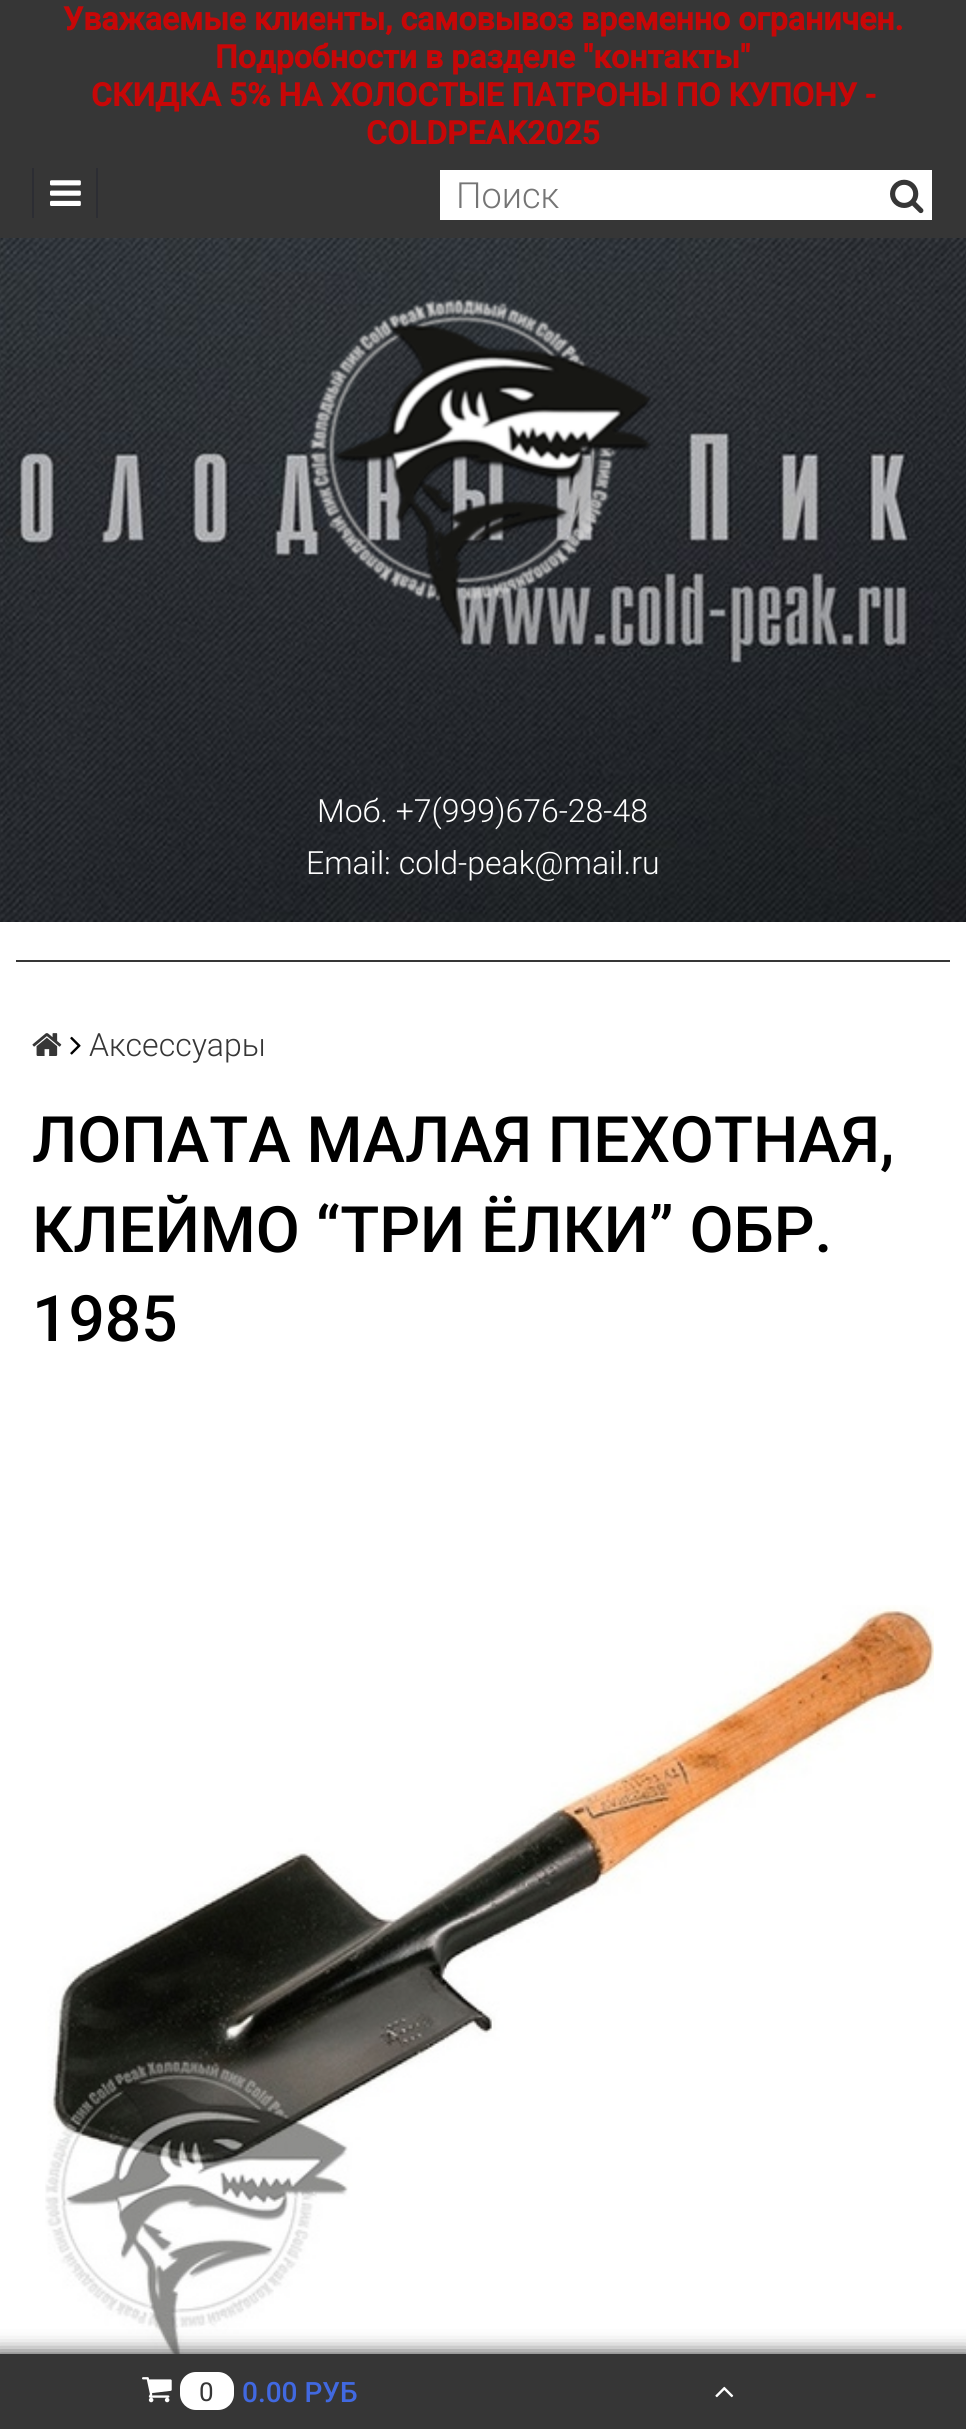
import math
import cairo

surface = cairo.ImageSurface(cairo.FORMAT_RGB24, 966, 2429)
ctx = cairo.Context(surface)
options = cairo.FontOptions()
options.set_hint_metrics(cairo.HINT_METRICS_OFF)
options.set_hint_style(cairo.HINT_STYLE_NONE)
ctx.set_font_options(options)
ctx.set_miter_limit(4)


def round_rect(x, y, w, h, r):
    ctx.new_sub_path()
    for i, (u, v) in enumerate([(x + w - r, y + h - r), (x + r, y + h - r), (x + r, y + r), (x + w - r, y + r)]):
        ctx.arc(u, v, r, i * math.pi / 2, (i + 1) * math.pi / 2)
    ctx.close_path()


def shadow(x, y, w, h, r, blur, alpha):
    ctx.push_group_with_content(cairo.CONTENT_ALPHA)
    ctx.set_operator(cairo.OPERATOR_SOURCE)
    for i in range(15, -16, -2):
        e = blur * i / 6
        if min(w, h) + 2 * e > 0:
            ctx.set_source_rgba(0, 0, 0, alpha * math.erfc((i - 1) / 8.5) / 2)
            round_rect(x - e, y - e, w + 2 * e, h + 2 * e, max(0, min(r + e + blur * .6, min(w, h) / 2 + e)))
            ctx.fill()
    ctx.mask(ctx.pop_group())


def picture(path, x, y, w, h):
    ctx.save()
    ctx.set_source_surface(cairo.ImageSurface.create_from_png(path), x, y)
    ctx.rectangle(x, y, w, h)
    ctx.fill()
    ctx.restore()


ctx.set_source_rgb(1, 1, 1)
ctx.paint()
ctx.set_source_rgb(0.212, 0.212, 0.212)
ctx.rectangle(0, 0, 966, 238)
ctx.fill()
ctx.select_font_face("Roboto", cairo.FONT_SLANT_NORMAL, cairo.FONT_WEIGHT_BOLD)
ctx.set_font_size(32)
ctx.set_source_rgb(0.78, 0.031, 0.031)
ctx.move_to(63, 30)
ctx.show_text("Уважаемые клиенты, самовывоз временно ограничен.")
ctx.move_to(215, 68)
ctx.show_text("Подробности в разделе \"контакты\"")
ctx.move_to(91, 106)
ctx.show_text("СКИДКА 5% НА ХОЛОСТЫЕ ПАТРОНЫ ПО КУПОНУ -")
ctx.move_to(366, 144)
ctx.show_text("COLDPEAK2025")
ctx.set_source_rgb(0.173, 0.176, 0.2)
ctx.rectangle(96, 168, 2, 50)
ctx.fill()
ctx.rectangle(32, 168, 2, 50)
ctx.fill()
picture("img1.png", 50, 180, 31, 26)
ctx.set_source_rgb(1, 1, 1)
ctx.rectangle(440, 170, 492, 50)
ctx.fill()
ctx.select_font_face("Roboto Light")
ctx.set_font_size(36)
ctx.set_source_rgb(0.459, 0.459, 0.459)
ctx.move_to(456, 208)
ctx.show_text("Поиск")
picture("img2.png", 890, 179, 34, 35)
picture("img3.png", 0, 238, 966, 684)
picture("img4.png", 309, 299, 342, 339)
ctx.set_font_size(32)
ctx.set_source_rgb(1, 1, 1)
ctx.move_to(317, 822)
ctx.show_text("Моб. +7(999)676-28-48")
ctx.move_to(306, 874)
ctx.show_text("Email: cold-peak@mail.ru")
ctx.set_source_rgb(0.212, 0.212, 0.212)
ctx.rectangle(16, 960, 934, 2)
ctx.fill()
picture("img5.png", 32, 1033, 30, 23)
picture("img6.png", 70, 1036, 11, 19)
ctx.move_to(89, 1056)
ctx.show_text("Аксессуары")
ctx.select_font_face("Roboto Medium")
ctx.set_font_size(64)
ctx.set_source_rgb(0, 0, 0)
ctx.move_to(32, 1162)
ctx.show_text("ЛОПАТА МАЛАЯ ПЕХОТНАЯ,")
ctx.move_to(32, 1252)
ctx.show_text("КЛЕЙМО “ТРИ ЁЛКИ” ОБР.")
ctx.move_to(32, 1341)
ctx.show_text("1985")
picture("img7.png", 45, 1605, 889, 749)
ctx.set_source_rgb(0.2, 0.2, 0.2)
shadow(-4, 2354, 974, 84, 0, 10, 1)
ctx.set_source_rgb(0.212, 0.212, 0.212)
ctx.rectangle(0, 2354, 966, 75)
ctx.fill()
picture("img8.png", 142, 2377, 30, 26)
ctx.set_source_rgb(1, 1, 1)
round_rect(180, 2372, 54, 38, 16)
ctx.fill()
ctx.select_font_face("Roboto")
ctx.set_font_size(26)
ctx.set_source_rgb(0.212, 0.212, 0.212)
ctx.move_to(199, 2401)
ctx.show_text("0")
ctx.select_font_face("Roboto Medium")
ctx.set_font_size(28)
ctx.set_source_rgb(0.255, 0.412, 0.882)
ctx.move_to(242, 2402)
ctx.show_text("0.00 РУБ")
picture("img9.png", 715, 2386, 19, 12)
surface.write_to_png("page.png")
